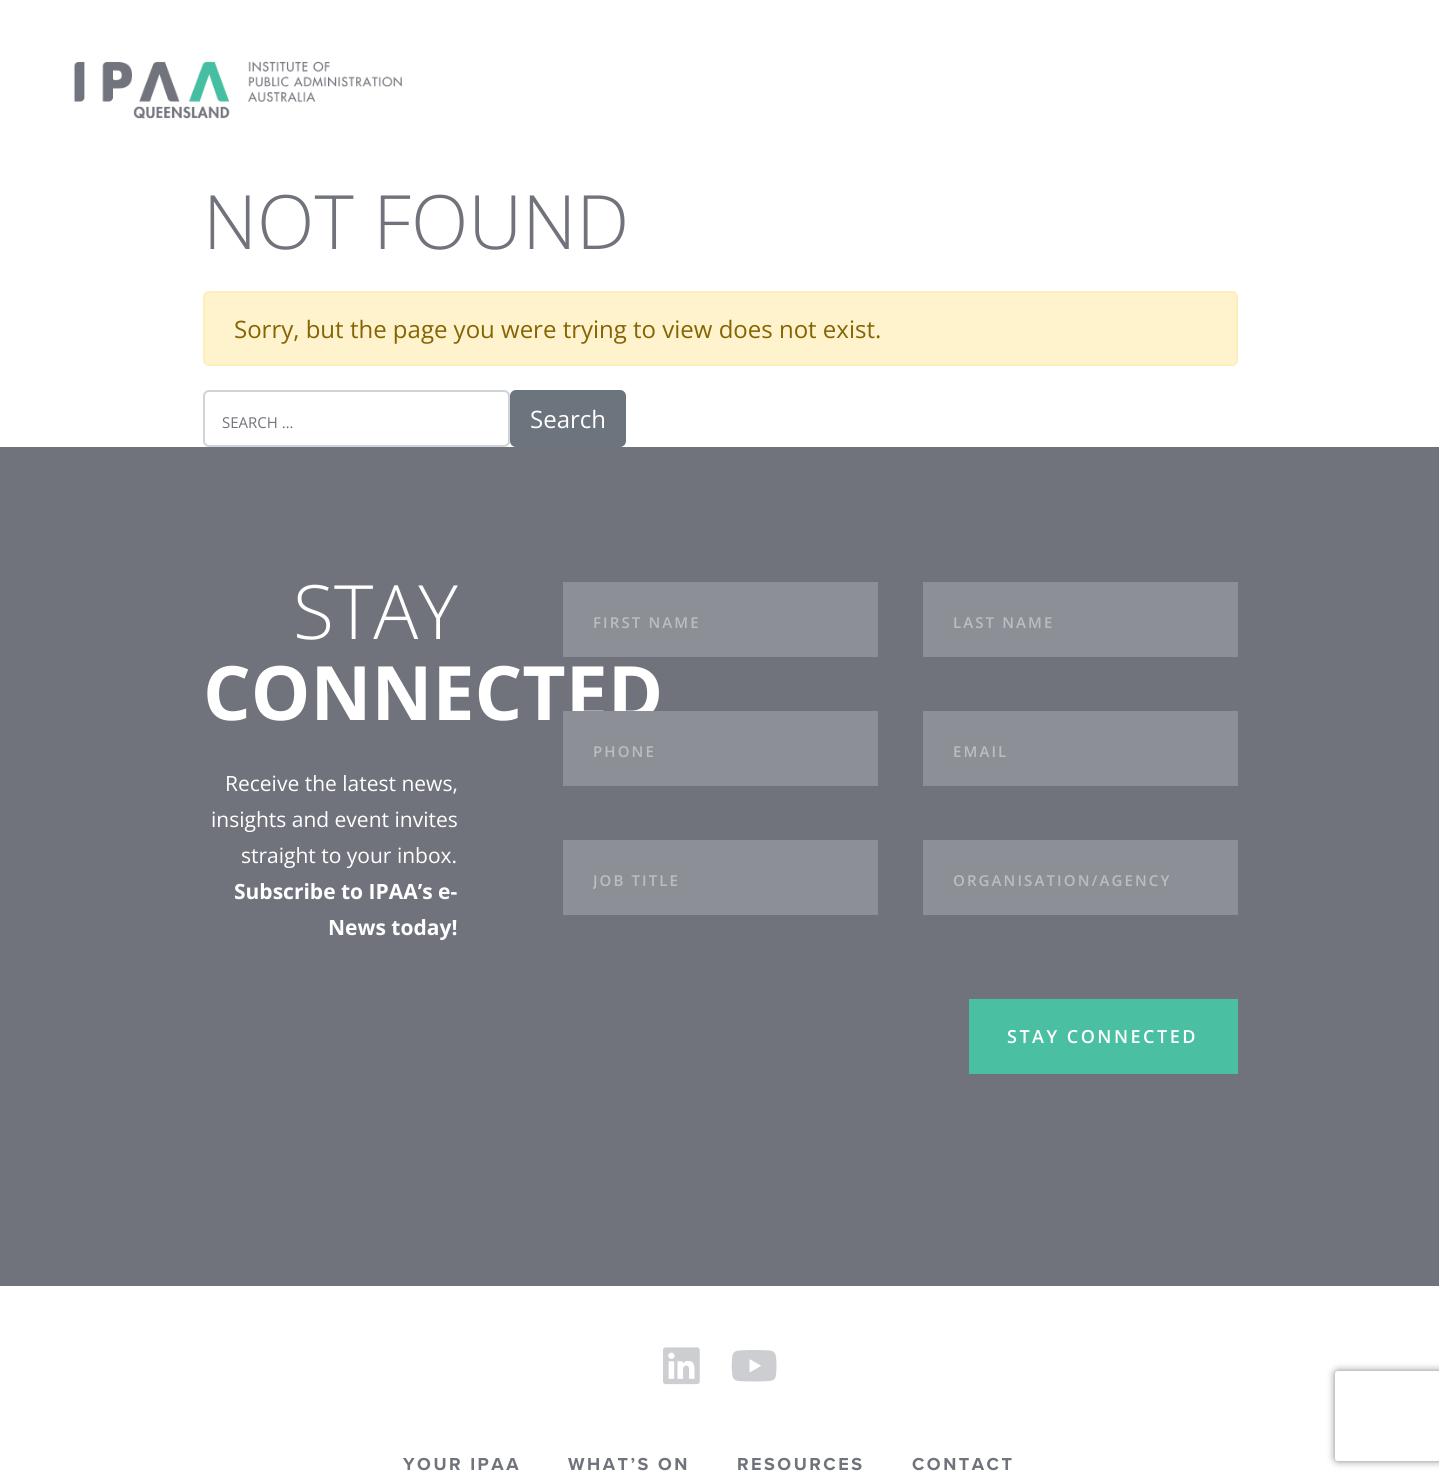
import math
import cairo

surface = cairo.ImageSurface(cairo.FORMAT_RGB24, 1439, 1482)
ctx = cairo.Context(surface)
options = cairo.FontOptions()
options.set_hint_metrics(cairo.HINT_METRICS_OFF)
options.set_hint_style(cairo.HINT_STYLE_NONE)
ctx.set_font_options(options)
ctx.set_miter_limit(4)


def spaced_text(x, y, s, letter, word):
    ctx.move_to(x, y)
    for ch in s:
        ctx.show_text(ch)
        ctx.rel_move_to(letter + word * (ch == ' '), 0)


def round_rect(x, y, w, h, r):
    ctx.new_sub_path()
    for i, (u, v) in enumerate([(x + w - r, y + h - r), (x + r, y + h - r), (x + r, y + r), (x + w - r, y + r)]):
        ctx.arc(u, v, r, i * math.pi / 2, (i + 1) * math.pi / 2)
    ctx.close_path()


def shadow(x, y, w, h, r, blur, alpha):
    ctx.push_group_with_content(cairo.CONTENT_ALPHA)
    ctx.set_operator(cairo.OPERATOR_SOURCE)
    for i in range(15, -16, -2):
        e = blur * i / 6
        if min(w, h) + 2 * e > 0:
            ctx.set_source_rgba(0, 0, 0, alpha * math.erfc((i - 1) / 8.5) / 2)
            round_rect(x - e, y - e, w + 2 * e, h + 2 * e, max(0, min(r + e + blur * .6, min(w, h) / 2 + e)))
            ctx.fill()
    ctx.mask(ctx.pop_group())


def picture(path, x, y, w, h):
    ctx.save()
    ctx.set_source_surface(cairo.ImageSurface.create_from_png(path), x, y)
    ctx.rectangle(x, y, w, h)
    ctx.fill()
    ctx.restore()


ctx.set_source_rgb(1, 1, 1)
ctx.paint()
picture("img1.png", 73, 61, 329, 58)
ctx.select_font_face("Open Sans Light")
ctx.set_font_size(75)
ctx.set_source_rgb(0.439, 0.451, 0.482)
ctx.move_to(203, 249)
ctx.show_text("NOT FOUND")
ctx.set_source_rgb(1, 0.953, 0.804)
round_rect(204, 292, 1033, 73, 5)
ctx.fill_preserve()
ctx.set_source_rgb(1, 0.933, 0.729)
ctx.stroke()
ctx.select_font_face("Open Sans")
ctx.set_font_size(24)
ctx.set_source_rgb(0.522, 0.392, 0.016)
ctx.move_to(234, 338)
ctx.show_text("Sorry, but the page you were trying to view does not exist.")
round_rect(204, 391, 305, 55, 5)
ctx.set_source_rgb(0.808, 0.831, 0.855)
ctx.stroke()
ctx.set_font_size(15)
ctx.set_source_rgb(0.439, 0.451, 0.482)
ctx.move_to(222, 428)
ctx.show_text("SEARCH …")
ctx.set_source_rgb(0.424, 0.459, 0.49)
round_rect(511, 391, 114, 55, 5)
ctx.fill_preserve()
ctx.stroke()
ctx.set_font_size(24)
ctx.set_source_rgb(1, 1, 1)
ctx.move_to(530, 428)
ctx.show_text("Search")
ctx.set_source_rgb(0.439, 0.451, 0.482)
ctx.rectangle(0, 447, 1439, 839)
ctx.fill()
ctx.select_font_face("Open Sans Light")
ctx.set_font_size(75)
ctx.set_source_rgb(1, 1, 1)
ctx.move_to(293, 639)
ctx.show_text("STAY")
ctx.select_font_face("Open Sans", cairo.FONT_SLANT_NORMAL, cairo.FONT_WEIGHT_BOLD)
ctx.move_to(203, 720)
ctx.show_text("CONNECTED")
ctx.select_font_face("Open Sans")
ctx.set_font_size(21)
ctx.move_to(225, 791)
ctx.show_text("Receive the latest news,")
ctx.move_to(211, 827)
ctx.show_text("insights and event invites")
ctx.move_to(241, 863)
ctx.show_text("straight to your inbox.")
ctx.select_font_face("Open Sans", cairo.FONT_SLANT_NORMAL, cairo.FONT_WEIGHT_BOLD)
ctx.move_to(234, 899)
ctx.show_text("Subscribe to IPAA’s e-")
ctx.move_to(328, 935)
ctx.show_text("News today!")
ctx.set_source_rgb(0.549, 0.561, 0.584)
ctx.rectangle(563, 582, 315, 75)
ctx.fill()
ctx.select_font_face("Open Sans SemiBold")
ctx.set_font_size(15)
ctx.set_source_rgb(0.733, 0.745, 0.757)
spaced_text(593, 628, "FIRST NAME", 2.1, 0)
ctx.set_source_rgb(0.549, 0.561, 0.584)
ctx.rectangle(923, 582, 315, 75)
ctx.fill()
ctx.set_source_rgb(0.733, 0.745, 0.757)
spaced_text(953, 628, "LAST NAME", 2.1, 0)
ctx.set_source_rgb(0.549, 0.561, 0.584)
ctx.rectangle(563, 711, 315, 75)
ctx.fill()
ctx.set_source_rgb(0.733, 0.745, 0.757)
spaced_text(593, 757, "PHONE", 2.1, 0)
ctx.set_source_rgb(0.549, 0.561, 0.584)
ctx.rectangle(923, 711, 315, 75)
ctx.fill()
ctx.set_source_rgb(0.733, 0.745, 0.757)
spaced_text(953, 757, "EMAIL", 2.1, 0)
ctx.set_source_rgb(0.549, 0.561, 0.584)
ctx.rectangle(563, 840, 315, 75)
ctx.fill()
ctx.save()
ctx.rectangle(593, 870, 255, 21)
ctx.clip()
ctx.set_source_rgb(0.733, 0.745, 0.757)
spaced_text(593, 886, "JOB TITLE", 2.1, 0)
ctx.restore()
ctx.rectangle(923, 840, 315, 75)
ctx.fill()
ctx.set_source_rgb(0.733, 0.745, 0.757)
spaced_text(953, 886, "ORGANISATION/AGENCY", 2.1, 0)
ctx.set_source_rgb(0.29, 0.749, 0.631)
ctx.rectangle(969, 999, 269, 75)
ctx.fill()
ctx.set_font_size(18)
ctx.set_source_rgb(1, 1, 1)
spaced_text(1007, 1043, "STAY CONNECTED", 2.5, 0)
picture("img2.png", 663, 1347, 37, 38)
picture("img3.png", 731, 1350, 46, 32)
ctx.select_font_face("Proxima Nova", cairo.FONT_SLANT_NORMAL, cairo.FONT_WEIGHT_BOLD)
ctx.set_source_rgb(0.439, 0.451, 0.482)
spaced_text(403, 1470, "YOUR IPAA", 2.5, 0)
spaced_text(568, 1470, "WHAT’S ON", 2.5, 0)
spaced_text(737, 1470, "RESOURCES", 2.5, 0)
spaced_text(912, 1470, "CONTACT", 2.5, 0)
ctx.save()
ctx.set_fill_rule(cairo.FILL_RULE_EVEN_ODD)
ctx.new_path()
ctx.move_to(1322, 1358)
ctx.line_to(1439, 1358)
ctx.line_to(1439, 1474)
ctx.line_to(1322, 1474)
ctx.close_path()
ctx.move_to(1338, 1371)
ctx.line_to(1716, 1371)
ctx.curve_to(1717.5, 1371, 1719, 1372.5, 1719, 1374)
ctx.line_to(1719, 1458)
ctx.curve_to(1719, 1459.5, 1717.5, 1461, 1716, 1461)
ctx.line_to(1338, 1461)
ctx.curve_to(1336.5, 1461, 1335, 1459.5, 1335, 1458)
ctx.line_to(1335, 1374)
ctx.curve_to(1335, 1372.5, 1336.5, 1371, 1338, 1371)
ctx.close_path()
ctx.clip()
ctx.set_source_rgb(0.502, 0.502, 0.502)
shadow(1335, 1371, 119, 90, 3, 4, 1)
ctx.restore()
surface.write_to_png("page.png")
